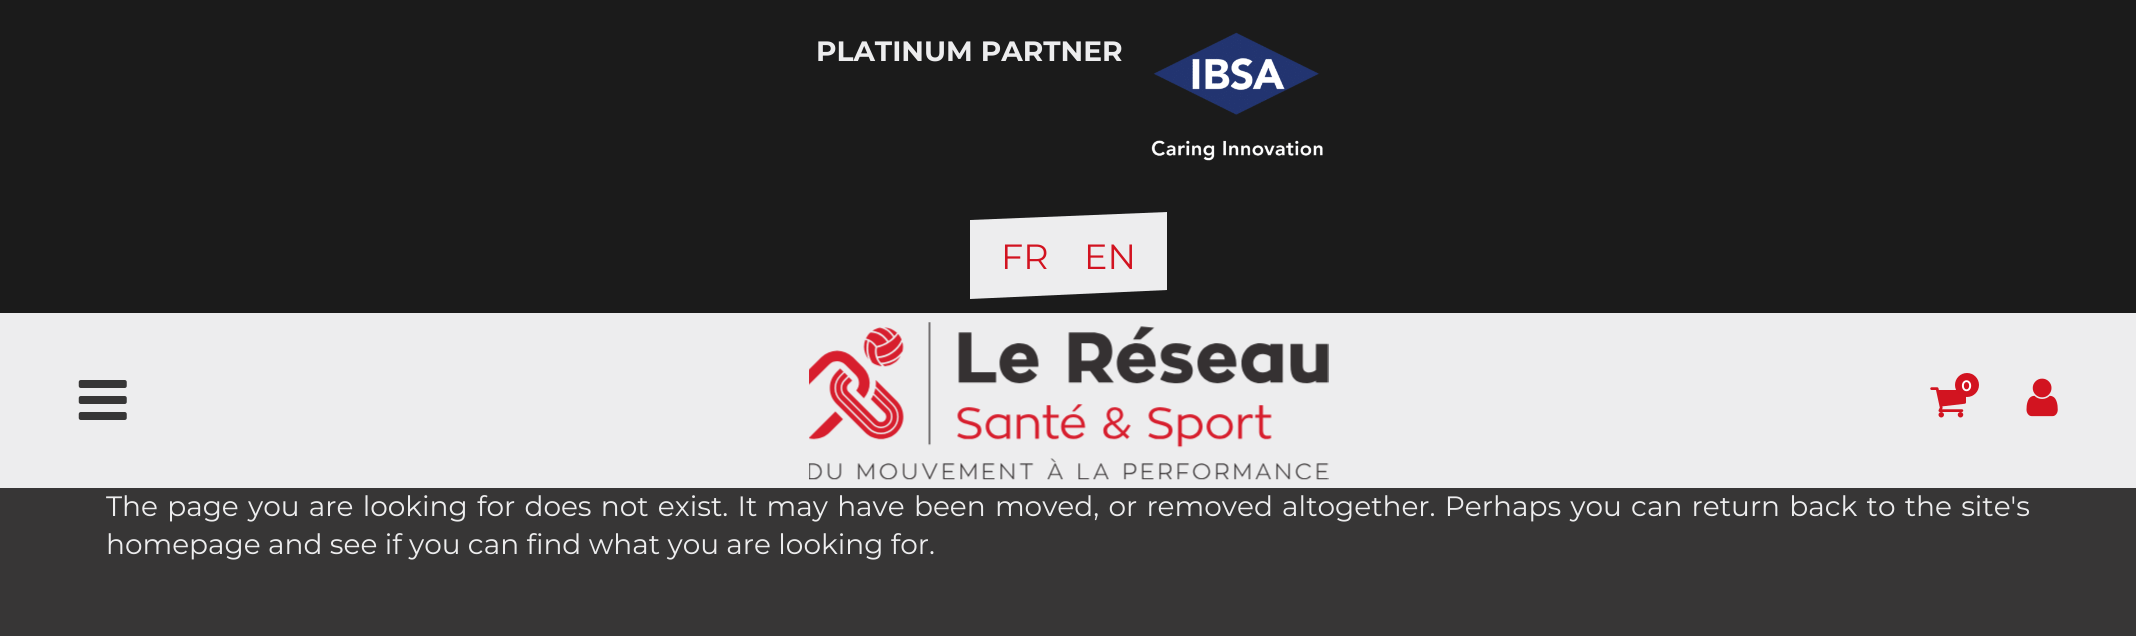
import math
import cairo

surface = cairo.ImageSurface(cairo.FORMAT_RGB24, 2136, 636)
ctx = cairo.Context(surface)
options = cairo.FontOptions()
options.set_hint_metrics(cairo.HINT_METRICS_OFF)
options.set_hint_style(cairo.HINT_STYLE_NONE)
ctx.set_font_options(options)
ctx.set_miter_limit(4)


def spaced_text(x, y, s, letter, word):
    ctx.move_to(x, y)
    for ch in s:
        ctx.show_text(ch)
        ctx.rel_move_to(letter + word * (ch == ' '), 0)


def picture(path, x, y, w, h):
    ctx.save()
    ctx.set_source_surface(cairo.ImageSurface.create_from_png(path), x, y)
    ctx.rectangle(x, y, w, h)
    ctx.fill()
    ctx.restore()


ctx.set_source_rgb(0.216, 0.212, 0.212)
ctx.paint()
ctx.set_source_rgb(0.106, 0.106, 0.106)
ctx.rectangle(0, 0, 2136, 313)
ctx.fill()
ctx.select_font_face("Montserrat", cairo.FONT_SLANT_NORMAL, cairo.FONT_WEIGHT_BOLD)
ctx.set_font_size(28)
ctx.set_source_rgb(0.929, 0.929, 0.933)
ctx.move_to(816, 61)
ctx.show_text("PLATINUM PARTNER")
picture("img1.png", 1151, 32, 172, 129)
ctx.new_path()
ctx.move_to(1167, 290)
ctx.line_to(970, 299)
ctx.line_to(970, 220)
ctx.line_to(1167, 212)
ctx.close_path()
ctx.fill()
ctx.select_font_face("Montserrat")
ctx.set_font_size(35)
ctx.set_source_rgb(0.824, 0.078, 0.125)
ctx.move_to(1001, 269)
ctx.show_text("FR")
ctx.move_to(1084, 269)
ctx.show_text("EN")
ctx.set_source_rgb(0.929, 0.929, 0.933)
ctx.rectangle(0, 313, 2136, 175)
ctx.fill()
picture("img2.png", 78, 380, 49, 40)
picture("img3.png", 809, 322, 520, 158)
picture("img4.png", 1930, 387, 36, 31)
ctx.set_source_rgb(0.824, 0.078, 0.125)
ctx.arc(1967, 385, 12, 0, 2 * math.pi)
ctx.fill()
ctx.select_font_face("Raleway SemiBold")
ctx.set_font_size(18)
ctx.set_source_rgb(1, 1, 1)
ctx.move_to(1961, 391)
ctx.show_text("0")
picture("img5.png", 2026, 378, 32, 39)
ctx.select_font_face("Montserrat")
ctx.set_font_size(28)
ctx.set_source_rgb(0.929, 0.929, 0.933)
spaced_text(106, 516, "The page you are looking for does not exist. It may have been moved, or removed altogether. Perhaps you can return back to the site's", 0, 1.9)
ctx.move_to(106, 554)
ctx.show_text("homepage and see if you can find what you are looking for.")
surface.write_to_png("page.png")
